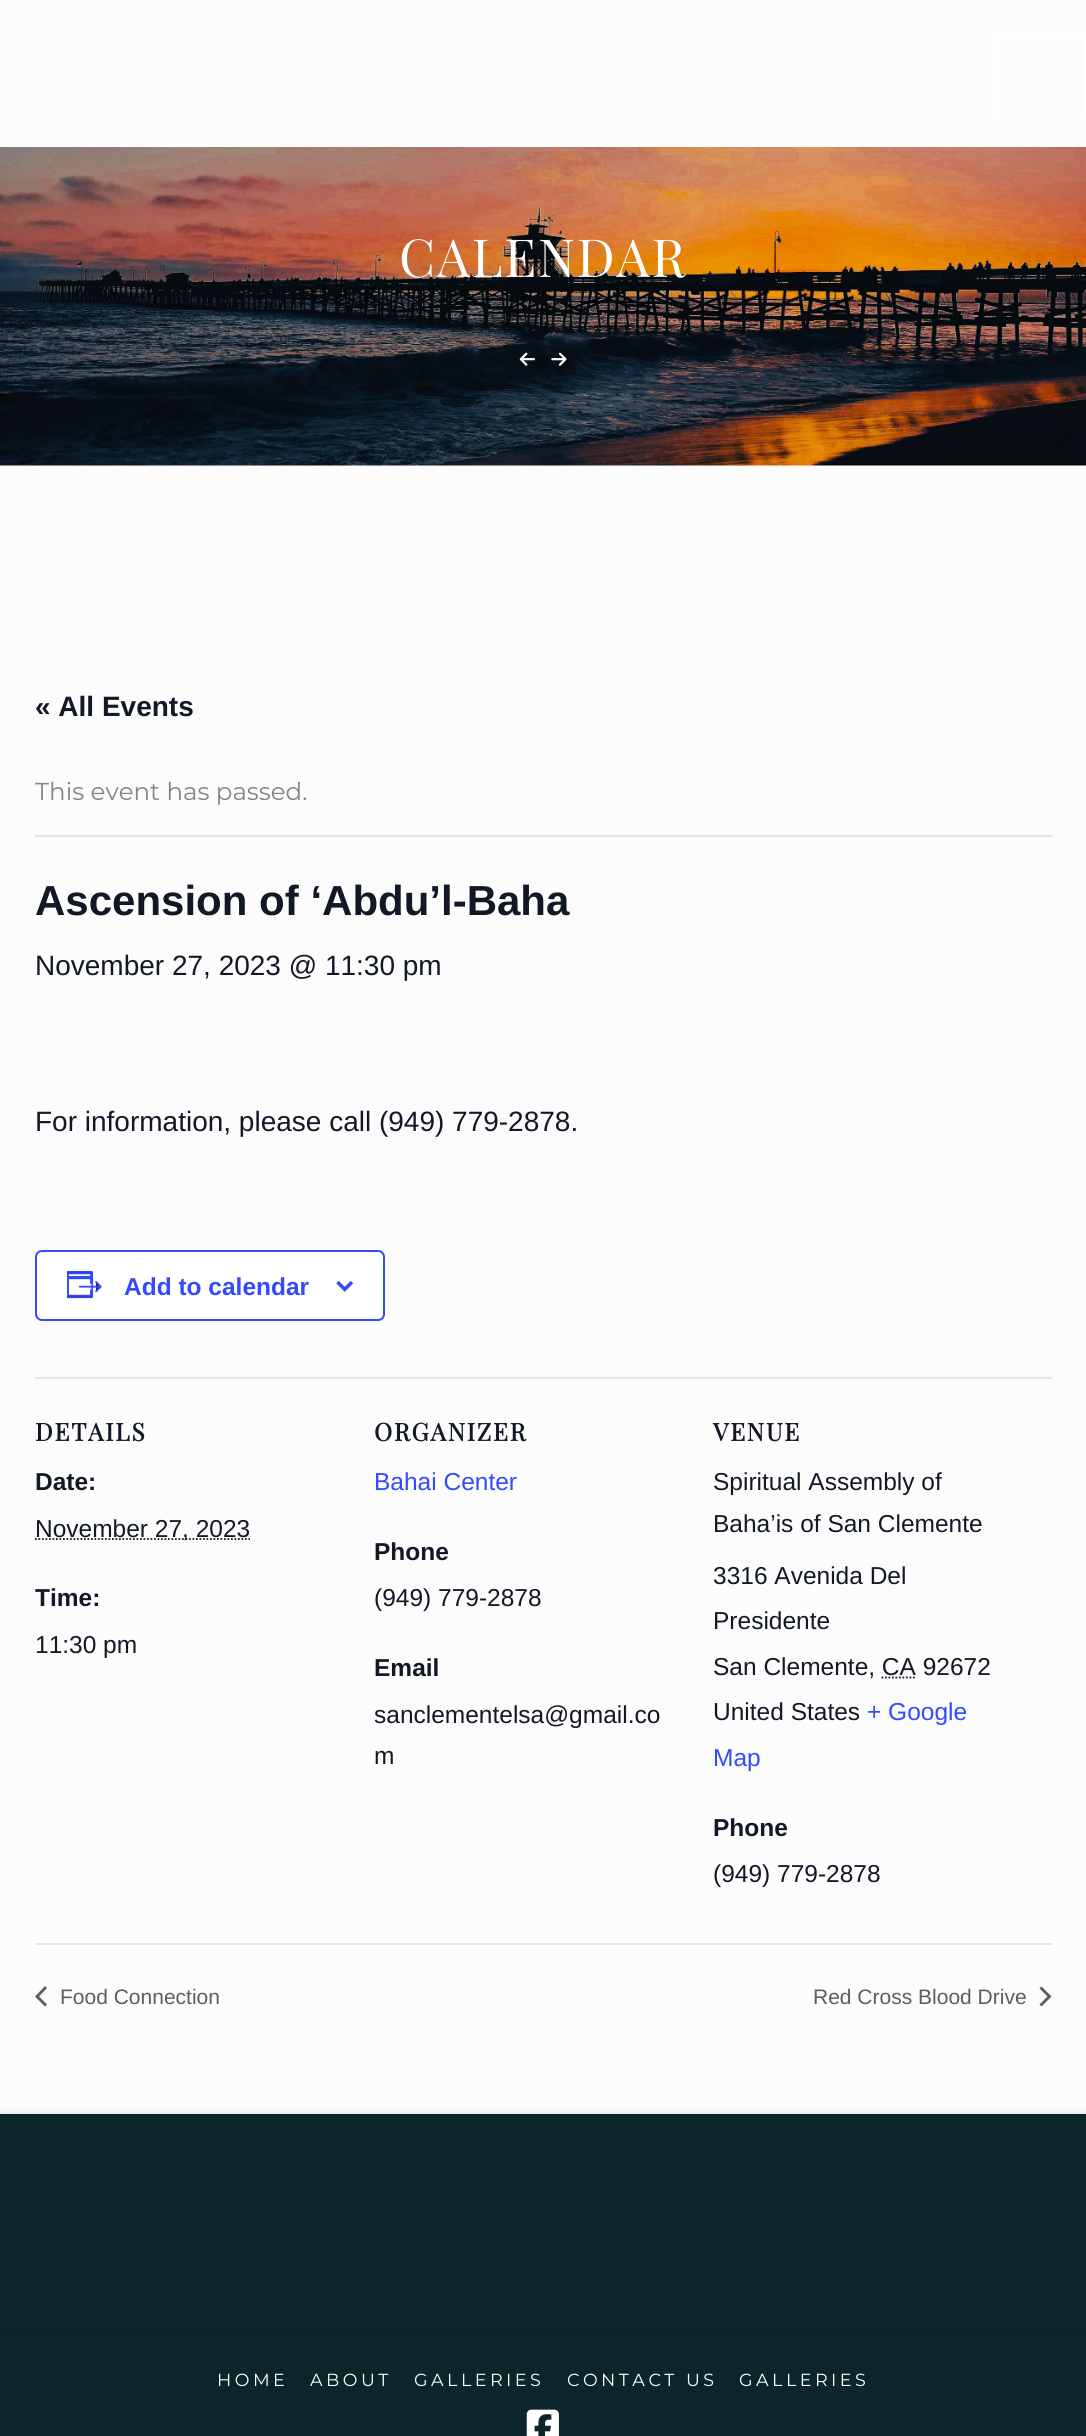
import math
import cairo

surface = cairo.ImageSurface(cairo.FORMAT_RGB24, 1086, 2436)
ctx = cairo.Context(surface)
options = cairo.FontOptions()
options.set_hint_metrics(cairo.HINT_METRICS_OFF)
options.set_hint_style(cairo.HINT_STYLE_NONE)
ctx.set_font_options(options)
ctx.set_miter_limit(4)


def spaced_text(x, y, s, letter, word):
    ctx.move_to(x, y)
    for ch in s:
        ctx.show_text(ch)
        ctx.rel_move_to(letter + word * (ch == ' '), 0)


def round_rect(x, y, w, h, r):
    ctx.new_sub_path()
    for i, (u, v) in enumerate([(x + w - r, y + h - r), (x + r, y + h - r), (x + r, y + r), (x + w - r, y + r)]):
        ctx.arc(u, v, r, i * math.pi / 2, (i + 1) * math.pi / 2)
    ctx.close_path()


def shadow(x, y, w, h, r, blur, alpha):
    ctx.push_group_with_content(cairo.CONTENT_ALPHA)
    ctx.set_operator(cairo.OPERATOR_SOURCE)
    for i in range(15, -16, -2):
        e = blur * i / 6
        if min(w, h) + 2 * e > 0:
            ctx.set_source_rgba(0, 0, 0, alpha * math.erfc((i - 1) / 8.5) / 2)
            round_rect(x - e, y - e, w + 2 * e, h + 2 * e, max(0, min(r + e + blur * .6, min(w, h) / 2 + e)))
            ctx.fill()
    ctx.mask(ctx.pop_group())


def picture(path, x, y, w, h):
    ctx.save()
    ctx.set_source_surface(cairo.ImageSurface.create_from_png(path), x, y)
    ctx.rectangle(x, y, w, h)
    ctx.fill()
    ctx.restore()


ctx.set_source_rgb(0.988, 0.988, 0.988)
ctx.paint()
picture("img1.png", 0, 147, 1086, 319)
round_rect(995, 36, 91, 84, 6)
ctx.set_source_rgb(1, 1, 1)
ctx.stroke()
ctx.select_font_face("Playfair Display")
ctx.set_font_size(52.5)
spaced_text(399, 277, "CALENDAR", 1.75, 0)
picture("img2.png", 519, 352, 16, 14)
picture("img3.png", 551, 352, 16, 14)
ctx.select_font_face("Liberation Sans", cairo.FONT_SLANT_NORMAL, cairo.FONT_WEIGHT_BOLD)
ctx.set_font_size(28)
ctx.set_source_rgb(0.078, 0.094, 0.153)
ctx.move_to(35, 716)
ctx.show_text("« All Events")
ctx.set_source_rgb(0.894, 0.894, 0.894)
ctx.rectangle(35, 835, 1017, 2)
ctx.fill()
ctx.select_font_face("Montserrat")
ctx.set_font_size(24.5)
ctx.set_source_rgb(0.525, 0.522, 0.522)
ctx.move_to(35, 800)
ctx.show_text("This event has passed.")
ctx.select_font_face("Liberation Sans", cairo.FONT_SLANT_NORMAL, cairo.FONT_WEIGHT_BOLD)
ctx.set_font_size(42)
ctx.set_source_rgb(0.078, 0.094, 0.153)
ctx.move_to(35, 915)
ctx.show_text("Ascension of ‘Abdu’l-Baha")
ctx.select_font_face("Liberation Sans")
ctx.set_font_size(28)
ctx.move_to(35, 975)
ctx.show_text("November 27, 2023 @ 11:30 pm")
ctx.move_to(35, 1131)
ctx.show_text("For information, please call (949) 779-2878.")
ctx.set_source_rgb(1, 1, 1)
round_rect(36, 1251, 348, 69, 6)
ctx.fill_preserve()
ctx.set_source_rgb(0.2, 0.29, 1)
ctx.stroke()
picture("img4.png", 67, 1271, 35, 28)
ctx.select_font_face("Liberation Sans", cairo.FONT_SLANT_NORMAL, cairo.FONT_WEIGHT_BOLD)
ctx.set_font_size(24.5)
ctx.move_to(124, 1295)
ctx.show_text("Add to calendar")
picture("img5.png", 336, 1281, 18, 11)
ctx.set_source_rgb(0.894, 0.894, 0.894)
ctx.rectangle(35, 1377, 1017, 2)
ctx.fill()
ctx.select_font_face("Playfair Display", cairo.FONT_SLANT_NORMAL, cairo.FONT_WEIGHT_BOLD)
ctx.set_source_rgb(0.078, 0.094, 0.153)
spaced_text(35, 1441, "DETAILS", 1.75, 0)
ctx.select_font_face("Liberation Sans", cairo.FONT_SLANT_NORMAL, cairo.FONT_WEIGHT_BOLD)
ctx.move_to(35, 1490)
ctx.show_text("Date:")
ctx.new_path()
ctx.move_to(35, 1539)
ctx.line_to(250, 1539)
ctx.set_line_width(1.8)
ctx.set_dash([1.75, 1.75])
ctx.stroke()
ctx.select_font_face("Liberation Sans")
ctx.move_to(35, 1537)
ctx.show_text("November 27, 2023")
ctx.select_font_face("Liberation Sans", cairo.FONT_SLANT_NORMAL, cairo.FONT_WEIGHT_BOLD)
ctx.move_to(35, 1606)
ctx.show_text("Time:")
ctx.select_font_face("Liberation Sans")
ctx.move_to(35, 1653)
ctx.show_text("11:30 pm")
ctx.select_font_face("Playfair Display", cairo.FONT_SLANT_NORMAL, cairo.FONT_WEIGHT_BOLD)
spaced_text(374, 1441, "ORGANIZER", 1.75, 0)
ctx.select_font_face("Liberation Sans")
ctx.set_source_rgb(0.2, 0.29, 1)
ctx.move_to(374, 1490)
ctx.show_text("Bahai Center")
ctx.select_font_face("Liberation Sans", cairo.FONT_SLANT_NORMAL, cairo.FONT_WEIGHT_BOLD)
ctx.set_source_rgb(0.078, 0.094, 0.153)
ctx.move_to(374, 1560)
ctx.show_text("Phone")
ctx.select_font_face("Liberation Sans")
ctx.move_to(374, 1606)
ctx.show_text("(949) 779-2878")
ctx.select_font_face("Liberation Sans", cairo.FONT_SLANT_NORMAL, cairo.FONT_WEIGHT_BOLD)
ctx.move_to(374, 1676)
ctx.show_text("Email")
ctx.select_font_face("Liberation Sans")
ctx.move_to(374, 1723)
ctx.show_text("sanclementelsa@gmail.co")
ctx.move_to(374, 1764)
ctx.show_text("m")
ctx.select_font_face("Playfair Display", cairo.FONT_SLANT_NORMAL, cairo.FONT_WEIGHT_BOLD)
spaced_text(713, 1441, "VENUE", 1.75, 0)
ctx.select_font_face("Liberation Sans")
ctx.move_to(713, 1490)
ctx.show_text("Spiritual Assembly of")
ctx.move_to(713, 1532)
ctx.show_text("Baha’is of San Clemente")
ctx.move_to(713, 1584)
ctx.show_text("3316 Avenida Del")
ctx.move_to(713, 1629)
ctx.show_text("Presidente")
ctx.move_to(713, 1675)
ctx.show_text("San Clemente, CA 92672")
ctx.new_path()
ctx.move_to(881.5, 1677.5)
ctx.line_to(916, 1677.5)
ctx.stroke()
ctx.move_to(713, 1720)
ctx.show_text("United States")
ctx.set_source_rgb(0.2, 0.29, 1)
ctx.move_to(867, 1720)
ctx.show_text("+ Google")
ctx.move_to(713, 1766)
ctx.show_text("Map")
ctx.select_font_face("Liberation Sans", cairo.FONT_SLANT_NORMAL, cairo.FONT_WEIGHT_BOLD)
ctx.set_source_rgb(0.078, 0.094, 0.153)
ctx.move_to(713, 1836)
ctx.show_text("Phone")
ctx.select_font_face("Liberation Sans")
ctx.move_to(713, 1882)
ctx.show_text("(949) 779-2878")
ctx.set_source_rgb(0.894, 0.894, 0.894)
ctx.rectangle(35, 1943, 1017, 2)
ctx.fill()
ctx.set_source_rgb(0.365, 0.365, 0.365)
ctx.new_path()
ctx.move_to(47, 2004.5)
ctx.line_to(45, 2006.5)
ctx.line_to(35, 1996.5)
ctx.line_to(45, 1986)
ctx.line_to(47, 1988)
ctx.line_to(39, 1996.5)
ctx.close_path()
ctx.fill()
ctx.set_font_size(21)
ctx.move_to(60, 2004)
ctx.show_text("Food Connection")
ctx.move_to(813, 2004)
ctx.show_text("Red Cross Blood Drive")
ctx.new_path()
ctx.move_to(1039.5, 1988.5)
ctx.line_to(1041.5, 1986.5)
ctx.line_to(1051.5, 1996.5)
ctx.line_to(1041.5, 2006.5)
ctx.line_to(1039.5, 2004.5)
ctx.line_to(1047.5, 1996.5)
ctx.close_path()
ctx.fill()
ctx.set_source_rgb(0, 0, 0)
shadow(0, 2111, 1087, 217, 0, 3, 0.07)
ctx.set_source_rgb(0.043, 0.145, 0.169)
ctx.rectangle(0, 2114, 1086, 217)
ctx.fill()
ctx.rectangle(0, 2333, 1086, 103)
ctx.fill()
ctx.set_source_rgb(0.039, 0.133, 0.153)
ctx.rectangle(0, 2331, 1086, 2)
ctx.fill()
ctx.select_font_face("Montserrat")
ctx.set_font_size(17.5)
ctx.set_source_rgb(1, 1, 1)
spaced_text(217, 2386, "HOME", 3.5, 0)
spaced_text(310, 2386, "ABOUT", 3.5, 0)
spaced_text(414, 2386, "GALLERIES", 3.5, 0)
spaced_text(567, 2386, "CONTACT US", 3.5, 0)
spaced_text(739, 2386, "GALLERIES", 3.5, 0)
picture("img6.png", 526, 2409, 33, 27)
surface.write_to_png("page.png")
